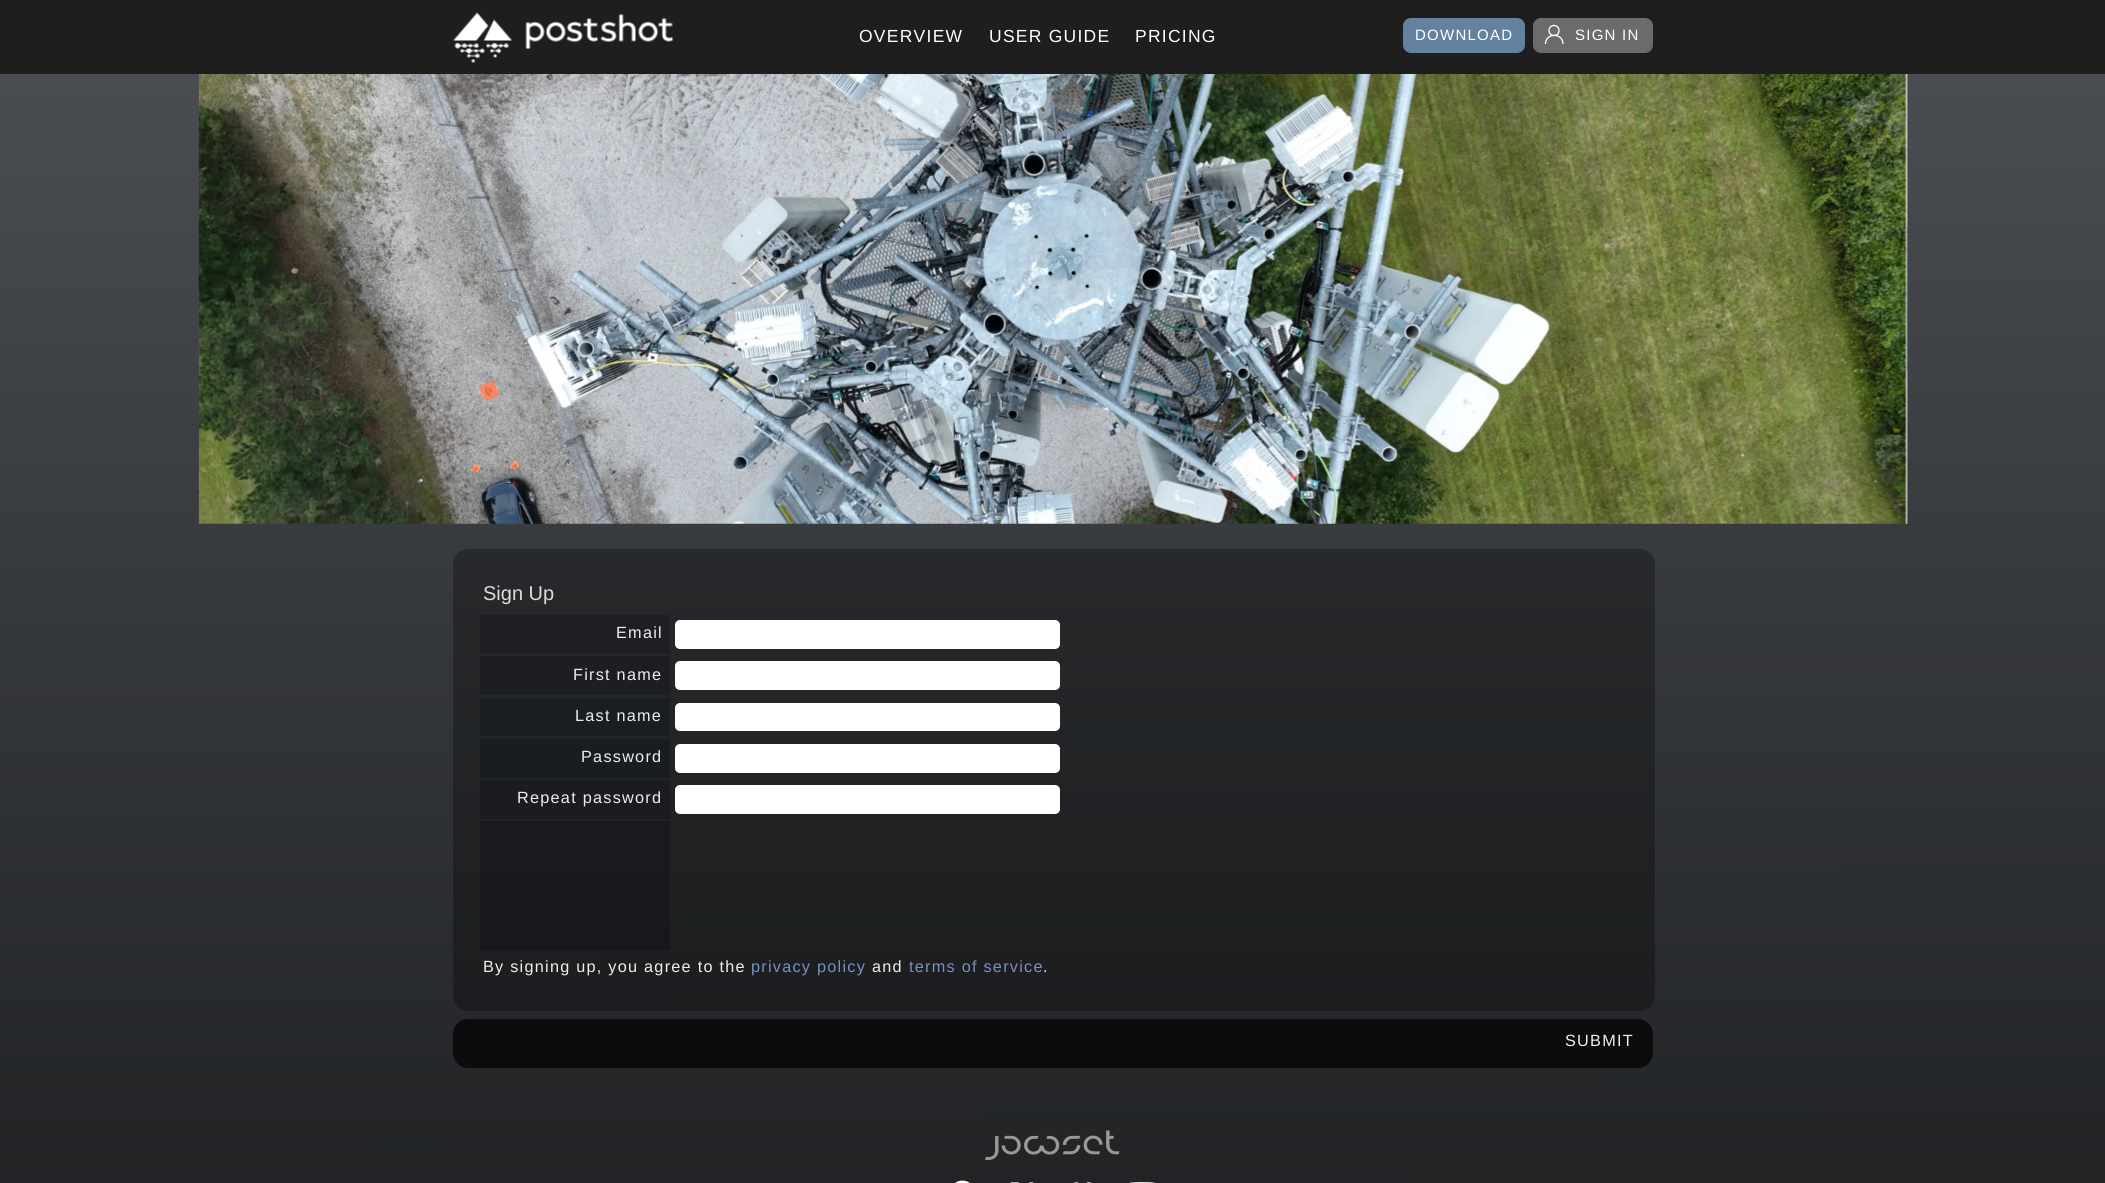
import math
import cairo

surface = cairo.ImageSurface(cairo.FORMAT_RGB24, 2105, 1183)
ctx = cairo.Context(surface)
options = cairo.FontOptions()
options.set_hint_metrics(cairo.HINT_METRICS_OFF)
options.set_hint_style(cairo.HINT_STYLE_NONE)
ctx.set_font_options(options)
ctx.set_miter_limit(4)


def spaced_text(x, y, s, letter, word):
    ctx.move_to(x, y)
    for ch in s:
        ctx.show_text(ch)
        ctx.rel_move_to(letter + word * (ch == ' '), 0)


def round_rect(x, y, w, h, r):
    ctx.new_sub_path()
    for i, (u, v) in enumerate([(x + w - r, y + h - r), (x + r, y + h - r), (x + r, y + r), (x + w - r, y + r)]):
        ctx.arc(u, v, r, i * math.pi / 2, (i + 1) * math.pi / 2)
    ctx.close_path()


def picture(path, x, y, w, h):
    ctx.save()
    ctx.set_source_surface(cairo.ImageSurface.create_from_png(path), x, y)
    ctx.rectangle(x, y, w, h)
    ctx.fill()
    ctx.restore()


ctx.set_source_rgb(1, 1, 1)
ctx.paint()
gradient = cairo.LinearGradient(1052, 0, 1053, 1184)
gradient.add_color_stop_rgba(0, 0.298, 0.31, 0.329, 1)
gradient.add_color_stop_rgba(1, 0.129, 0.137, 0.145, 1)
ctx.set_source(gradient)
ctx.rectangle(0, 74, 2105, 1109)
ctx.fill()
ctx.set_source_rgb(0.118, 0.118, 0.118)
ctx.rectangle(0, 0, 2105, 74)
ctx.fill()
picture("img1.png", 453, 12, 221, 51)
ctx.select_font_face("Liberation Sans")
ctx.set_font_size(17.5)
ctx.set_source_rgb(1, 1, 1)
spaced_text(859, 42, "OVERVIEW", 1.25, 0)
spaced_text(989, 42, "USER GUIDE", 1.25, 0)
spaced_text(1135, 42, "PRICING", 1.25, 0)
ctx.set_source_rgb(0.388, 0.51, 0.627)
round_rect(1403, 18, 122, 35, 8)
ctx.fill()
ctx.set_font_size(15)
ctx.set_source_rgb(1, 1, 1)
spaced_text(1415, 40, "DOWNLOAD", 1.25, 0)
ctx.set_source_rgb(0.42, 0.42, 0.42)
round_rect(1533, 18, 120, 35, 8)
ctx.fill()
ctx.arc(1554, 30.5, 5, 0, 2 * math.pi)
ctx.set_source_rgb(1, 1, 1)
ctx.set_line_width(1.3)
ctx.stroke()
ctx.new_path()
ctx.move_to(1545.5, 44)
ctx.curve_to(1545.5, 32.5, 1563, 32.5, 1563, 44)
ctx.stroke()
spaced_text(1575, 40, "SIGN IN", 1.25, 0)
picture("img2.png", 198, 74, 1710, 450)
ctx.set_source_rgba(0, 0, 0, 0.3)
round_rect(453, 549, 1202, 462, 15)
ctx.fill()
ctx.set_font_size(20)
ctx.set_source_rgb(0.867, 0.867, 0.867)
ctx.move_to(483, 600)
ctx.show_text("Sign Up")
ctx.set_source_rgb(0.114, 0.122, 0.137)
ctx.rectangle(480, 615, 190, 39)
ctx.fill()
ctx.set_font_size(16.25)
ctx.set_source_rgb(0.933, 0.933, 0.933)
spaced_text(616, 638, "Email", 1.25, 0)
ctx.set_source_rgb(1, 1, 1)
round_rect(675, 620, 385, 29, 5)
ctx.fill()
ctx.set_source_rgb(0.11, 0.118, 0.133)
ctx.rectangle(480, 656, 190, 39)
ctx.fill()
ctx.set_source_rgb(0.933, 0.933, 0.933)
spaced_text(573, 680, "First name", 1.25, 0)
ctx.set_source_rgb(1, 1, 1)
round_rect(675, 661, 385, 29, 5)
ctx.fill()
ctx.set_source_rgb(0.106, 0.118, 0.129)
ctx.rectangle(480, 698, 190, 38)
ctx.fill()
ctx.set_source_rgb(0.933, 0.933, 0.933)
spaced_text(575, 721, "Last name", 1.25, 0)
ctx.set_source_rgb(1, 1, 1)
round_rect(675, 703, 385, 28, 5)
ctx.fill()
ctx.set_source_rgb(0.102, 0.114, 0.125)
ctx.rectangle(480, 739, 190, 39)
ctx.fill()
ctx.set_source_rgb(0.933, 0.933, 0.933)
spaced_text(581, 762, "Password", 1.25, 0)
ctx.set_source_rgb(1, 1, 1)
round_rect(675, 744, 385, 29, 5)
ctx.fill()
ctx.set_source_rgb(0.102, 0.11, 0.122)
ctx.rectangle(480, 780, 190, 39)
ctx.fill()
ctx.set_source_rgb(0.933, 0.933, 0.933)
spaced_text(517, 803, "Repeat password", 1.25, 0)
ctx.set_source_rgb(1, 1, 1)
round_rect(675, 785, 385, 29, 5)
ctx.fill()
ctx.set_source_rgba(0.016, 0.031, 0.063, 0.25)
ctx.rectangle(480, 821, 190, 129)
ctx.fill()
ctx.set_source_rgb(0.933, 0.933, 0.933)
spaced_text(483, 972, "By signing up, you agree to the", 1.25, 0)
ctx.set_source_rgb(0.471, 0.565, 0.753)
spaced_text(751, 972, "privacy policy", 1.25, 0)
ctx.set_source_rgb(0.933, 0.933, 0.933)
spaced_text(872, 972, "and", 1.25, 0)
ctx.set_source_rgb(0.471, 0.565, 0.753)
spaced_text(909, 972, "terms of service", 1.25, 0)
ctx.set_source_rgb(0.933, 0.933, 0.933)
spaced_text(1043, 972, ".", 1.25, 0)
ctx.set_source_rgb(0.043, 0.047, 0.051)
round_rect(453, 1019, 1200, 49, 15)
ctx.fill()
ctx.set_source_rgb(0.933, 0.933, 0.933)
spaced_text(1565, 1046, "SUBMIT", 1.25, 0)
picture("img3.png", 985, 1130, 135, 30)
picture("img4.png", 955, 1180, 15, 3)
picture("img5.png", 1010, 1182, 24, 1)
picture("img6.png", 1073, 1181, 19, 2)
picture("img7.png", 1129, 1182, 26, 1)
surface.write_to_png("page.png")
